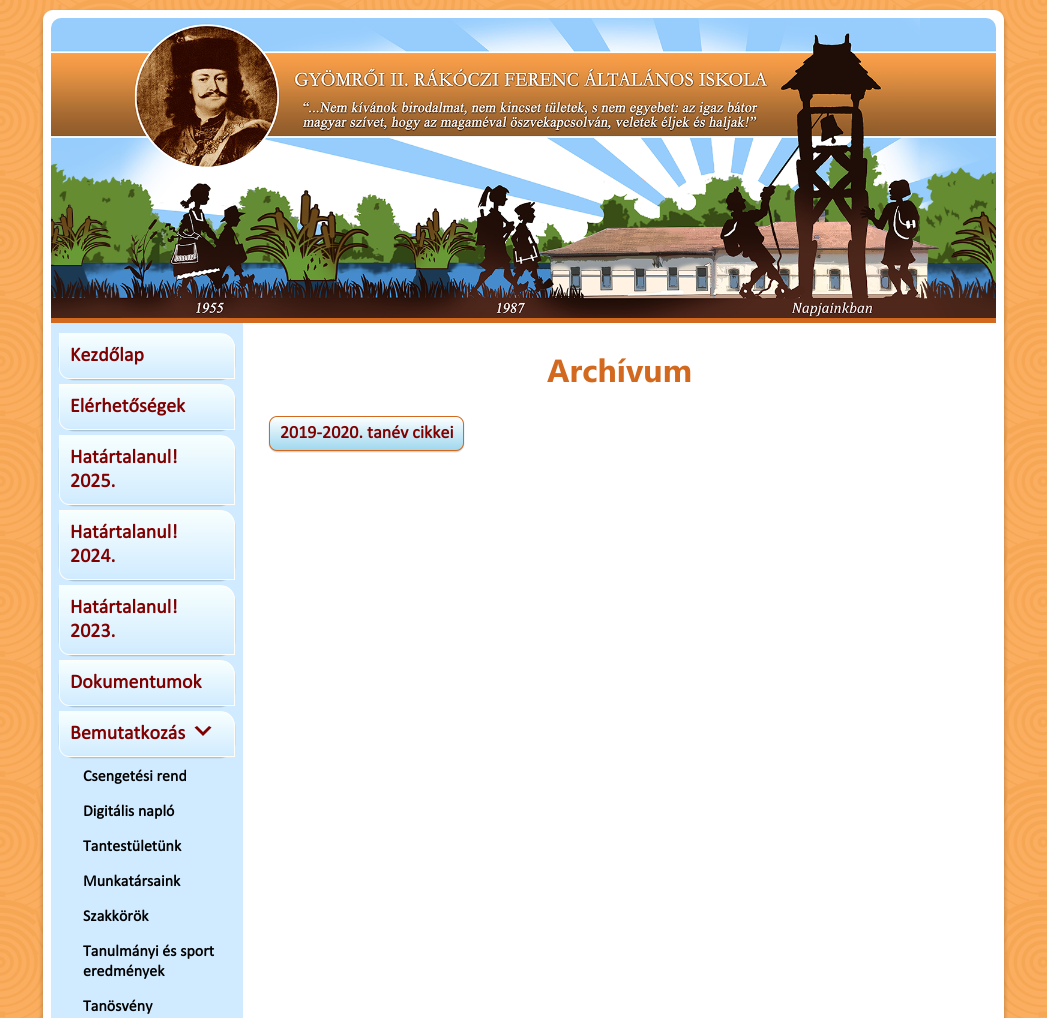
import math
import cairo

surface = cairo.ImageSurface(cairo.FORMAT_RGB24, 1047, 1018)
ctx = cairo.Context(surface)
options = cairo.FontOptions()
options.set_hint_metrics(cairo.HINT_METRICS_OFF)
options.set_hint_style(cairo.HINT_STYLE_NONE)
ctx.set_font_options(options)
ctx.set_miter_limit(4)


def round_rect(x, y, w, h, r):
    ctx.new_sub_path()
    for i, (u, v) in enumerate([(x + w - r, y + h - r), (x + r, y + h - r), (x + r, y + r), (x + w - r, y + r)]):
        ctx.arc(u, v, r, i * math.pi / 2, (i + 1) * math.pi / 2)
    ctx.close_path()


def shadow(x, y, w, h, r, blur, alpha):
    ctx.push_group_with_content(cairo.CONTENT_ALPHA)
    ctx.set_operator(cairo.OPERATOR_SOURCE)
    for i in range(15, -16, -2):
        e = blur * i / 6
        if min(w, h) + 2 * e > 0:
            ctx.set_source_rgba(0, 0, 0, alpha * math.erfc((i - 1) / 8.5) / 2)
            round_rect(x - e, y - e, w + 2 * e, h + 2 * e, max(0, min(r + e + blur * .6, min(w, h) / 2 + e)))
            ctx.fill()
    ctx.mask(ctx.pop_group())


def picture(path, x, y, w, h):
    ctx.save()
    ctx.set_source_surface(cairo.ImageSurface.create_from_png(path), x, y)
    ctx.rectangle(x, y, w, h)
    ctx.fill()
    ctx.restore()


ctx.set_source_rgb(0.984, 0.647, 0.306)
ctx.paint()
picture("img1.png", 0, 0, 1047, 1018)
ctx.set_source_rgb(0, 0, 0)
shadow(43, 13, 961, 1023, 10, 2.5, 0.3)
ctx.set_source_rgb(1, 1, 1)
round_rect(47, 14, 953, 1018, 6)
ctx.fill_preserve()
ctx.set_line_width(8)
ctx.stroke()
picture("img2.png", 51, 18, 945, 300)
ctx.set_source_rgb(0.824, 0.412, 0.118)
ctx.rectangle(51, 318, 945, 5)
ctx.fill()
ctx.set_source_rgb(0.816, 0.918, 1)
ctx.rectangle(51, 323, 192, 695)
ctx.fill()
ctx.save()
ctx.set_fill_rule(cairo.FILL_RULE_EVEN_ODD)
ctx.new_path()
ctx.move_to(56, 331)
ctx.line_to(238, 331)
ctx.line_to(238, 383)
ctx.line_to(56, 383)
ctx.close_path()
ctx.move_to(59, 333)
ctx.line_to(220, 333)
ctx.curve_to(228.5, 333, 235, 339.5, 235, 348)
ctx.line_to(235, 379)
ctx.line_to(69, 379)
ctx.curve_to(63.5, 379, 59, 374.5, 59, 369)
ctx.close_path()
ctx.clip()
ctx.set_source_rgb(0, 0, 0)
shadow(59, 334, 176, 46, 15, 0.5, 0.2)
ctx.restore()
ctx.save()
ctx.new_path()
ctx.move_to(59, 333)
ctx.line_to(220, 333)
ctx.curve_to(228.5, 333, 235, 339.5, 235, 348)
ctx.line_to(235, 379)
ctx.line_to(69, 379)
ctx.curve_to(63.5, 379, 59, 374.5, 59, 369)
ctx.close_path()
ctx.clip()
gradient = cairo.LinearGradient(147, 334, 147, 378)
gradient.add_color_stop_rgba(0, 0.969, 1, 0.996, 1)
gradient.add_color_stop_rgba(1, 0.969, 1, 0.996, 0)
ctx.set_source(gradient)
ctx.rectangle(59, 334, 176, 43)
ctx.fill()
ctx.restore()
ctx.new_path()
ctx.move_to(59.5, 333.5)
ctx.line_to(220, 333.5)
ctx.curve_to(228, 333.5, 234.5, 340, 234.5, 348)
ctx.line_to(234.5, 378.5)
ctx.line_to(69, 378.5)
ctx.curve_to(64, 378.5, 59.5, 374, 59.5, 369)
ctx.close_path()
ctx.set_source_rgb(1, 0.992, 0.969)
ctx.set_line_width(1)
ctx.stroke()
ctx.select_font_face("Calibri", cairo.FONT_SLANT_NORMAL, cairo.FONT_WEIGHT_BOLD)
ctx.set_font_size(20)
ctx.set_source_rgb(0.502, 0, 0)
ctx.move_to(70, 361)
ctx.show_text("Kezdőlap")
ctx.save()
ctx.set_fill_rule(cairo.FILL_RULE_EVEN_ODD)
ctx.new_path()
ctx.move_to(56, 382)
ctx.line_to(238, 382)
ctx.line_to(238, 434)
ctx.line_to(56, 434)
ctx.close_path()
ctx.move_to(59, 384)
ctx.line_to(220, 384)
ctx.curve_to(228.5, 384, 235, 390.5, 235, 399)
ctx.line_to(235, 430)
ctx.line_to(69, 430)
ctx.curve_to(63.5, 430, 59, 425.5, 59, 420)
ctx.close_path()
ctx.clip()
ctx.set_source_rgb(0, 0, 0)
shadow(59, 385, 176, 46, 15, 0.5, 0.2)
ctx.restore()
ctx.save()
ctx.new_path()
ctx.move_to(59, 384)
ctx.line_to(220, 384)
ctx.curve_to(228.5, 384, 235, 390.5, 235, 399)
ctx.line_to(235, 430)
ctx.line_to(69, 430)
ctx.curve_to(63.5, 430, 59, 425.5, 59, 420)
ctx.close_path()
ctx.clip()
gradient = cairo.LinearGradient(147, 385, 147, 429)
gradient.add_color_stop_rgba(0, 0.969, 1, 0.996, 1)
gradient.add_color_stop_rgba(1, 0.969, 1, 0.996, 0)
ctx.set_source(gradient)
ctx.rectangle(59, 385, 176, 43)
ctx.fill()
ctx.restore()
ctx.new_path()
ctx.move_to(59.5, 384.5)
ctx.line_to(220, 384.5)
ctx.curve_to(228, 384.5, 234.5, 391, 234.5, 399)
ctx.line_to(234.5, 429.5)
ctx.line_to(69, 429.5)
ctx.curve_to(64, 429.5, 59.5, 425, 59.5, 420)
ctx.close_path()
ctx.set_source_rgb(1, 0.992, 0.969)
ctx.stroke()
ctx.set_source_rgb(0.502, 0, 0)
ctx.move_to(70, 412)
ctx.show_text("Elérhetőségek")
ctx.save()
ctx.set_fill_rule(cairo.FILL_RULE_EVEN_ODD)
ctx.new_path()
ctx.move_to(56, 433)
ctx.line_to(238, 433)
ctx.line_to(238, 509)
ctx.line_to(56, 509)
ctx.close_path()
ctx.move_to(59, 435)
ctx.line_to(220, 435)
ctx.curve_to(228.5, 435, 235, 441.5, 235, 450)
ctx.line_to(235, 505)
ctx.line_to(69, 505)
ctx.curve_to(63.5, 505, 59, 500.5, 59, 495)
ctx.close_path()
ctx.clip()
ctx.set_source_rgb(0, 0, 0)
shadow(59, 436, 176, 70, 15, 0.5, 0.2)
ctx.restore()
ctx.save()
ctx.new_path()
ctx.move_to(59, 435)
ctx.line_to(220, 435)
ctx.curve_to(228.5, 435, 235, 441.5, 235, 450)
ctx.line_to(235, 505)
ctx.line_to(69, 505)
ctx.curve_to(63.5, 505, 59, 500.5, 59, 495)
ctx.close_path()
ctx.clip()
gradient = cairo.LinearGradient(147, 436, 147, 504)
gradient.add_color_stop_rgba(0, 0.969, 1, 0.996, 1)
gradient.add_color_stop_rgba(1, 0.969, 1, 0.996, 0)
ctx.set_source(gradient)
ctx.rectangle(59, 436, 176, 67)
ctx.fill()
ctx.restore()
ctx.new_path()
ctx.move_to(59.5, 435.5)
ctx.line_to(220, 435.5)
ctx.curve_to(228, 435.5, 234.5, 442, 234.5, 450)
ctx.line_to(234.5, 504.5)
ctx.line_to(69, 504.5)
ctx.curve_to(64, 504.5, 59.5, 500, 59.5, 495)
ctx.close_path()
ctx.set_source_rgb(1, 0.992, 0.969)
ctx.stroke()
ctx.set_source_rgb(0.502, 0, 0)
ctx.move_to(70, 463)
ctx.show_text("Határtalanul!")
ctx.move_to(70, 487)
ctx.show_text("2025.")
ctx.save()
ctx.set_fill_rule(cairo.FILL_RULE_EVEN_ODD)
ctx.new_path()
ctx.move_to(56, 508)
ctx.line_to(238, 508)
ctx.line_to(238, 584)
ctx.line_to(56, 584)
ctx.close_path()
ctx.move_to(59, 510)
ctx.line_to(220, 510)
ctx.curve_to(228.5, 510, 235, 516.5, 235, 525)
ctx.line_to(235, 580)
ctx.line_to(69, 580)
ctx.curve_to(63.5, 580, 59, 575.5, 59, 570)
ctx.close_path()
ctx.clip()
ctx.set_source_rgb(0, 0, 0)
shadow(59, 511, 176, 70, 15, 0.5, 0.2)
ctx.restore()
ctx.save()
ctx.new_path()
ctx.move_to(59, 510)
ctx.line_to(220, 510)
ctx.curve_to(228.5, 510, 235, 516.5, 235, 525)
ctx.line_to(235, 580)
ctx.line_to(69, 580)
ctx.curve_to(63.5, 580, 59, 575.5, 59, 570)
ctx.close_path()
ctx.clip()
gradient = cairo.LinearGradient(147, 511, 147, 579)
gradient.add_color_stop_rgba(0, 0.969, 1, 0.996, 1)
gradient.add_color_stop_rgba(1, 0.969, 1, 0.996, 0)
ctx.set_source(gradient)
ctx.rectangle(59, 511, 176, 67)
ctx.fill()
ctx.restore()
ctx.new_path()
ctx.move_to(59.5, 510.5)
ctx.line_to(220, 510.5)
ctx.curve_to(228, 510.5, 234.5, 517, 234.5, 525)
ctx.line_to(234.5, 579.5)
ctx.line_to(69, 579.5)
ctx.curve_to(64, 579.5, 59.5, 575, 59.5, 570)
ctx.close_path()
ctx.set_source_rgb(1, 0.992, 0.969)
ctx.stroke()
ctx.set_source_rgb(0.502, 0, 0)
ctx.move_to(70, 538)
ctx.show_text("Határtalanul!")
ctx.move_to(70, 562)
ctx.show_text("2024.")
ctx.save()
ctx.set_fill_rule(cairo.FILL_RULE_EVEN_ODD)
ctx.new_path()
ctx.move_to(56, 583)
ctx.line_to(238, 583)
ctx.line_to(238, 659)
ctx.line_to(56, 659)
ctx.close_path()
ctx.move_to(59, 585)
ctx.line_to(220, 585)
ctx.curve_to(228.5, 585, 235, 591.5, 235, 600)
ctx.line_to(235, 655)
ctx.line_to(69, 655)
ctx.curve_to(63.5, 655, 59, 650.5, 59, 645)
ctx.close_path()
ctx.clip()
ctx.set_source_rgb(0, 0, 0)
shadow(59, 586, 176, 70, 15, 0.5, 0.2)
ctx.restore()
ctx.save()
ctx.new_path()
ctx.move_to(59, 585)
ctx.line_to(220, 585)
ctx.curve_to(228.5, 585, 235, 591.5, 235, 600)
ctx.line_to(235, 655)
ctx.line_to(69, 655)
ctx.curve_to(63.5, 655, 59, 650.5, 59, 645)
ctx.close_path()
ctx.clip()
gradient = cairo.LinearGradient(147, 586, 147, 654)
gradient.add_color_stop_rgba(0, 0.969, 1, 0.996, 1)
gradient.add_color_stop_rgba(1, 0.969, 1, 0.996, 0)
ctx.set_source(gradient)
ctx.rectangle(59, 586, 176, 67)
ctx.fill()
ctx.restore()
ctx.new_path()
ctx.move_to(59.5, 585.5)
ctx.line_to(220, 585.5)
ctx.curve_to(228, 585.5, 234.5, 592, 234.5, 600)
ctx.line_to(234.5, 654.5)
ctx.line_to(69, 654.5)
ctx.curve_to(64, 654.5, 59.5, 650, 59.5, 645)
ctx.close_path()
ctx.set_source_rgb(1, 0.992, 0.969)
ctx.stroke()
ctx.set_source_rgb(0.502, 0, 0)
ctx.move_to(70, 613)
ctx.show_text("Határtalanul!")
ctx.move_to(70, 637)
ctx.show_text("2023.")
ctx.save()
ctx.set_fill_rule(cairo.FILL_RULE_EVEN_ODD)
ctx.new_path()
ctx.move_to(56, 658)
ctx.line_to(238, 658)
ctx.line_to(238, 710)
ctx.line_to(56, 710)
ctx.close_path()
ctx.move_to(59, 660)
ctx.line_to(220, 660)
ctx.curve_to(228.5, 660, 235, 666.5, 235, 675)
ctx.line_to(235, 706)
ctx.line_to(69, 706)
ctx.curve_to(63.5, 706, 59, 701.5, 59, 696)
ctx.close_path()
ctx.clip()
ctx.set_source_rgb(0, 0, 0)
shadow(59, 661, 176, 46, 15, 0.5, 0.2)
ctx.restore()
ctx.save()
ctx.new_path()
ctx.move_to(59, 660)
ctx.line_to(220, 660)
ctx.curve_to(228.5, 660, 235, 666.5, 235, 675)
ctx.line_to(235, 706)
ctx.line_to(69, 706)
ctx.curve_to(63.5, 706, 59, 701.5, 59, 696)
ctx.close_path()
ctx.clip()
gradient = cairo.LinearGradient(147, 661, 147, 705)
gradient.add_color_stop_rgba(0, 0.969, 1, 0.996, 1)
gradient.add_color_stop_rgba(1, 0.969, 1, 0.996, 0)
ctx.set_source(gradient)
ctx.rectangle(59, 661, 176, 43)
ctx.fill()
ctx.restore()
ctx.new_path()
ctx.move_to(59.5, 660.5)
ctx.line_to(220, 660.5)
ctx.curve_to(228, 660.5, 234.5, 667, 234.5, 675)
ctx.line_to(234.5, 705.5)
ctx.line_to(69, 705.5)
ctx.curve_to(64, 705.5, 59.5, 701, 59.5, 696)
ctx.close_path()
ctx.set_source_rgb(1, 0.992, 0.969)
ctx.stroke()
ctx.set_source_rgb(0.502, 0, 0)
ctx.move_to(70, 688)
ctx.show_text("Dokumentumok")
ctx.save()
ctx.set_fill_rule(cairo.FILL_RULE_EVEN_ODD)
ctx.new_path()
ctx.move_to(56, 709)
ctx.line_to(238, 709)
ctx.line_to(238, 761)
ctx.line_to(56, 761)
ctx.close_path()
ctx.move_to(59, 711)
ctx.line_to(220, 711)
ctx.curve_to(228.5, 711, 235, 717.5, 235, 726)
ctx.line_to(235, 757)
ctx.line_to(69, 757)
ctx.curve_to(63.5, 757, 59, 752.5, 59, 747)
ctx.close_path()
ctx.clip()
ctx.set_source_rgb(0, 0, 0)
shadow(59, 712, 176, 46, 15, 0.5, 0.2)
ctx.restore()
ctx.save()
ctx.new_path()
ctx.move_to(59, 711)
ctx.line_to(220, 711)
ctx.curve_to(228.5, 711, 235, 717.5, 235, 726)
ctx.line_to(235, 757)
ctx.line_to(69, 757)
ctx.curve_to(63.5, 757, 59, 752.5, 59, 747)
ctx.close_path()
ctx.clip()
gradient = cairo.LinearGradient(147, 712, 147, 756)
gradient.add_color_stop_rgba(0, 0.969, 1, 0.996, 1)
gradient.add_color_stop_rgba(1, 0.969, 1, 0.996, 0)
ctx.set_source(gradient)
ctx.rectangle(59, 712, 176, 43)
ctx.fill()
ctx.restore()
ctx.new_path()
ctx.move_to(59.5, 711.5)
ctx.line_to(220, 711.5)
ctx.curve_to(228, 711.5, 234.5, 718, 234.5, 726)
ctx.line_to(234.5, 756.5)
ctx.line_to(69, 756.5)
ctx.curve_to(64, 756.5, 59.5, 752, 59.5, 747)
ctx.close_path()
ctx.set_source_rgb(1, 0.992, 0.969)
ctx.stroke()
ctx.set_source_rgb(0.502, 0, 0)
ctx.move_to(70, 739)
ctx.show_text("Bemutatkozás")
ctx.new_path()
ctx.move_to(197, 726)
ctx.line_to(203, 732)
ctx.line_to(209, 726)
ctx.line_to(211.5, 727.5)
ctx.line_to(203, 736)
ctx.line_to(194.5, 727.5)
ctx.close_path()
ctx.fill()
ctx.set_font_size(16)
ctx.set_source_rgb(0, 0, 0)
ctx.move_to(83, 781)
ctx.show_text("Csengetési rend")
ctx.move_to(83, 816)
ctx.show_text("Digitális napló")
ctx.move_to(83, 851)
ctx.show_text("Tantestületünk")
ctx.move_to(83, 886)
ctx.show_text("Munkatársaink")
ctx.move_to(83, 921)
ctx.show_text("Szakkörök")
ctx.move_to(83, 956)
ctx.show_text("Tanulmányi és sport")
ctx.move_to(83, 976)
ctx.show_text("eredmények")
ctx.move_to(83, 1011)
ctx.show_text("Tanösvény")
ctx.select_font_face("Segoe UI", cairo.FONT_SLANT_NORMAL, cairo.FONT_WEIGHT_BOLD)
ctx.set_font_size(32)
ctx.set_source_rgb(0.824, 0.412, 0.118)
ctx.move_to(547, 382)
ctx.show_text("Archívum")
ctx.set_source_rgb(0, 0, 0)
shadow(269, 417, 195, 35, 8, 0.5, 0.2)
ctx.save()
round_rect(269, 416, 195, 35, 8)
ctx.clip()
gradient = cairo.LinearGradient(367, 417, 367, 450)
gradient.add_color_stop_rgba(0, 0.996, 1, 1, 1)
gradient.add_color_stop_rgba(0.35, 0.867, 0.945, 0.976, 1)
gradient.add_color_stop_rgba(1, 0.627, 0.847, 0.937, 1)
ctx.set_source(gradient)
ctx.rectangle(269, 417, 195, 33)
ctx.fill()
ctx.restore()
round_rect(269.5, 416.5, 194, 34, 7.5)
ctx.set_source_rgb(0.824, 0.412, 0.118)
ctx.stroke()
ctx.select_font_face("Calibri", cairo.FONT_SLANT_NORMAL, cairo.FONT_WEIGHT_BOLD)
ctx.set_font_size(18)
ctx.set_source_rgb(0.502, 0, 0)
ctx.move_to(280, 438)
ctx.show_text("2019-2020. tanév cikkei")
surface.write_to_png("page.png")
